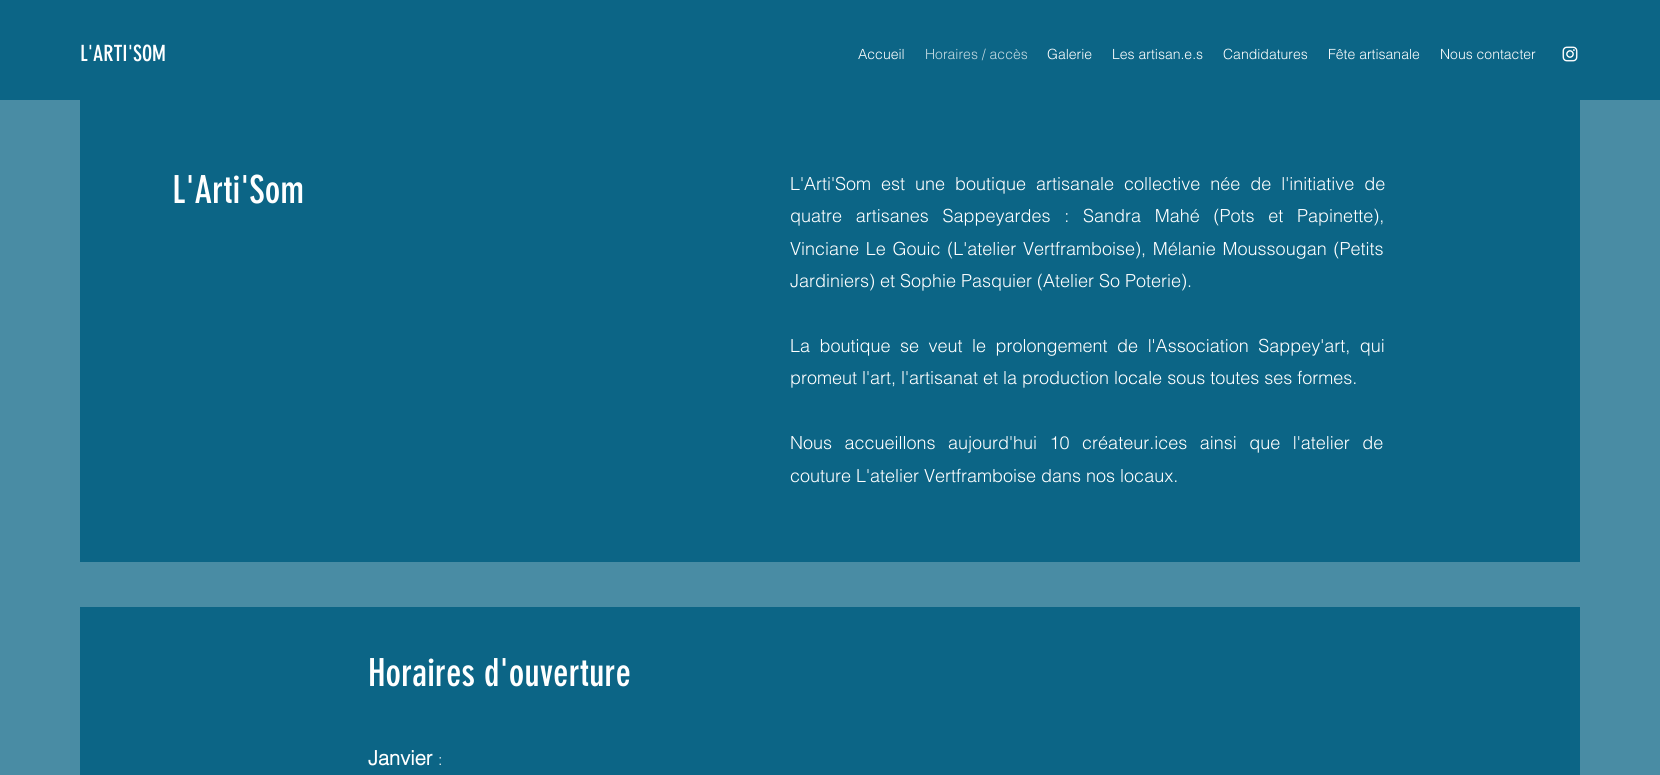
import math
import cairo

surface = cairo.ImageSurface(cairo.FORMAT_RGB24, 1660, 775)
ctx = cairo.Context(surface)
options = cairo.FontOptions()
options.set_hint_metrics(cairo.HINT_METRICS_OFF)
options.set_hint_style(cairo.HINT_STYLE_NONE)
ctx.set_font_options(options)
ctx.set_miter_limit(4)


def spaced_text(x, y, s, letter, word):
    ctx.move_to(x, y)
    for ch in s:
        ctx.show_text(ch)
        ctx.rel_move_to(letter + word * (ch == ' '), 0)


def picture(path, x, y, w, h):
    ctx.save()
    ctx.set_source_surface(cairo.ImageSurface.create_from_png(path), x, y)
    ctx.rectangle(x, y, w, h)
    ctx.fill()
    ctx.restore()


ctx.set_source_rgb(0.286, 0.549, 0.643)
ctx.paint()
ctx.set_source_rgb(0.047, 0.396, 0.525)
ctx.rectangle(0, 0, 1660, 100)
ctx.fill()
ctx.select_font_face("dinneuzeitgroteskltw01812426")
ctx.set_font_size(22)
ctx.set_source_rgb(1, 1, 1)
ctx.move_to(80, 61)
ctx.show_text("L'ARTI'SOM")
ctx.select_font_face("helvetica Light")
ctx.set_font_size(14)
ctx.move_to(858, 59)
ctx.show_text("Accueil")
ctx.set_source_rgb(0.761, 0.851, 0.882)
ctx.move_to(925, 59)
ctx.show_text("Horaires / accès")
ctx.set_source_rgb(1, 1, 1)
ctx.move_to(1047, 59)
ctx.show_text("Galerie")
ctx.move_to(1112, 59)
ctx.show_text("Les artisan.e.s")
ctx.move_to(1223, 59)
ctx.show_text("Candidatures")
ctx.move_to(1328, 59)
ctx.show_text("Fête artisanale")
ctx.move_to(1440, 59)
ctx.show_text("Nous contacter")
picture("img1.png", 1562, 46, 16, 16)
ctx.set_source_rgb(0.047, 0.396, 0.525)
ctx.rectangle(80, 100, 1500, 462)
ctx.fill()
ctx.select_font_face("dinneuzeitgroteskltw01812426")
ctx.set_font_size(38)
ctx.set_source_rgb(1, 1, 1)
ctx.move_to(172, 203)
ctx.show_text("L'Arti'Som")
ctx.select_font_face("helvetica Light")
ctx.set_font_size(18)
spaced_text(790, 190, "L'Arti'Som est une boutique artisanale collective née de l'initiative de", 0, 5)
spaced_text(790, 222, "quatre artisanes Sappeyardes : Sandra Mahé (Pots et Papinette),", 0, 8.75)
spaced_text(790, 255, "Vinciane Le Gouic (L'atelier Vertframboise), Mélanie Moussougan (Petits", 0, 1.75)
ctx.move_to(790, 287)
ctx.show_text("Jardiniers) et Sophie Pasquier (Atelier So Poterie).")
spaced_text(790, 352, "La boutique se veut le prolongement de l'Association Sappey'art, qui", 0, 4.5)
ctx.move_to(790, 384)
ctx.show_text("promeut l'art, l'artisanat et la production locale sous toutes ses formes.")
spaced_text(790, 449, "Nous accueillons aujourd'hui 10 créateur.ices ainsi que l'atelier de", 0, 7.5)
ctx.move_to(790, 482)
ctx.show_text("couture L'atelier Vertframboise dans nos locaux.")
ctx.set_source_rgb(0.047, 0.396, 0.525)
ctx.rectangle(80, 607, 1500, 168)
ctx.fill()
ctx.select_font_face("dinneuzeitgroteskltw01812426")
ctx.set_font_size(38)
ctx.set_source_rgb(1, 1, 1)
ctx.move_to(368, 686)
ctx.show_text("Horaires d'ouverture")
ctx.select_font_face("helvetica", cairo.FONT_SLANT_NORMAL, cairo.FONT_WEIGHT_BOLD)
ctx.set_font_size(20)
ctx.move_to(368, 765)
ctx.show_text("Janvier")
ctx.select_font_face("helvetica Light")
ctx.set_font_size(16)
ctx.move_to(438, 765)
ctx.show_text(":")
surface.write_to_png("page.png")
